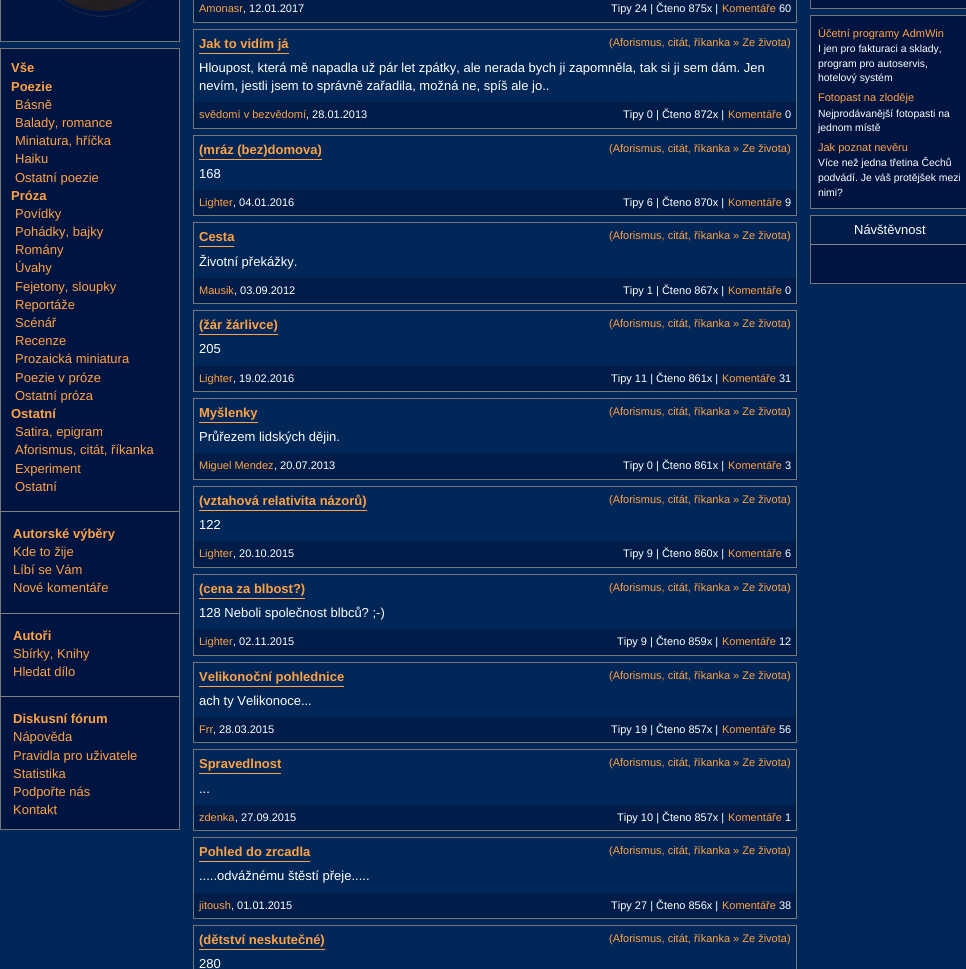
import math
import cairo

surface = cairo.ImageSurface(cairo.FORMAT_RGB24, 966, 969)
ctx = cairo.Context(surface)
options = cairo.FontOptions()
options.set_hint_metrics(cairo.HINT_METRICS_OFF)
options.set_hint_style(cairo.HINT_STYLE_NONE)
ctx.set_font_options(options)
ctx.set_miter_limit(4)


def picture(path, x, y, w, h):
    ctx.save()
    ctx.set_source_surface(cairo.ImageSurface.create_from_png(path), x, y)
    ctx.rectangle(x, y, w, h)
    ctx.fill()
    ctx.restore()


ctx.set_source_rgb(0, 0.153, 0.341)
ctx.paint()
ctx.set_source_rgb(0, 0.082, 0.255)
ctx.rectangle(0.5, -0.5, 179, 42)
ctx.fill_preserve()
ctx.set_source_rgb(0.467, 0.467, 0.467)
ctx.set_line_width(1)
ctx.stroke()
picture("img1.png", 51, 0, 95, 17)
ctx.set_source_rgb(0, 0.082, 0.255)
ctx.rectangle(0.5, 48.5, 179, 781)
ctx.fill_preserve()
ctx.set_source_rgb(0.467, 0.467, 0.467)
ctx.stroke()
ctx.select_font_face("Liberation Sans", cairo.FONT_SLANT_NORMAL, cairo.FONT_WEIGHT_BOLD)
ctx.set_font_size(13)
ctx.set_source_rgb(1, 0.635, 0.267)
ctx.move_to(11, 72)
ctx.show_text("Vše")
ctx.move_to(11, 91)
ctx.show_text("Poezie")
ctx.select_font_face("Liberation Sans")
ctx.move_to(15, 109)
ctx.show_text("Básně")
ctx.move_to(15, 127)
ctx.show_text("Balady, romance")
ctx.move_to(15, 145)
ctx.show_text("Miniatura, hříčka")
ctx.move_to(15, 163)
ctx.show_text("Haiku")
ctx.move_to(15, 182)
ctx.show_text("Ostatní poezie")
ctx.select_font_face("Liberation Sans", cairo.FONT_SLANT_NORMAL, cairo.FONT_WEIGHT_BOLD)
ctx.move_to(11, 200)
ctx.show_text("Próza")
ctx.select_font_face("Liberation Sans")
ctx.move_to(15, 218)
ctx.show_text("Povídky")
ctx.move_to(15, 236)
ctx.show_text("Pohádky, bajky")
ctx.move_to(15, 254)
ctx.show_text("Romány")
ctx.move_to(15, 272)
ctx.show_text("Úvahy")
ctx.move_to(15, 291)
ctx.show_text("Fejetony, sloupky")
ctx.move_to(15, 309)
ctx.show_text("Reportáže")
ctx.move_to(15, 327)
ctx.show_text("Scénář")
ctx.move_to(15, 345)
ctx.show_text("Recenze")
ctx.move_to(15, 363)
ctx.show_text("Prozaická miniatura")
ctx.move_to(15, 382)
ctx.show_text("Poezie v próze")
ctx.move_to(15, 400)
ctx.show_text("Ostatní próza")
ctx.select_font_face("Liberation Sans", cairo.FONT_SLANT_NORMAL, cairo.FONT_WEIGHT_BOLD)
ctx.move_to(11, 418)
ctx.show_text("Ostatní")
ctx.select_font_face("Liberation Sans")
ctx.move_to(15, 436)
ctx.show_text("Satira, epigram")
ctx.move_to(15, 454)
ctx.show_text("Aforismus, citát, říkanka")
ctx.move_to(15, 473)
ctx.show_text("Experiment")
ctx.move_to(15, 491)
ctx.show_text("Ostatní")
ctx.set_source_rgb(0.502, 0.502, 0.502)
ctx.rectangle(1, 511, 178, 1)
ctx.fill()
ctx.select_font_face("Liberation Sans", cairo.FONT_SLANT_NORMAL, cairo.FONT_WEIGHT_BOLD)
ctx.set_source_rgb(1, 0.635, 0.267)
ctx.move_to(13, 538)
ctx.show_text("Autorské výběry")
ctx.select_font_face("Liberation Sans")
ctx.move_to(13, 556)
ctx.show_text("Kde to žije")
ctx.move_to(13, 574)
ctx.show_text("Líbí se Vám")
ctx.move_to(13, 592)
ctx.show_text("Nové komentáře")
ctx.set_source_rgb(0.502, 0.502, 0.502)
ctx.rectangle(1, 613, 178, 1)
ctx.fill()
ctx.select_font_face("Liberation Sans", cairo.FONT_SLANT_NORMAL, cairo.FONT_WEIGHT_BOLD)
ctx.set_source_rgb(1, 0.635, 0.267)
ctx.move_to(13, 640)
ctx.show_text("Autoři")
ctx.select_font_face("Liberation Sans")
ctx.move_to(13, 658)
ctx.show_text("Sbírky, Knihy")
ctx.move_to(13, 676)
ctx.show_text("Hledat dílo")
ctx.set_source_rgb(0.502, 0.502, 0.502)
ctx.rectangle(1, 696, 178, 1)
ctx.fill()
ctx.select_font_face("Liberation Sans", cairo.FONT_SLANT_NORMAL, cairo.FONT_WEIGHT_BOLD)
ctx.set_source_rgb(1, 0.635, 0.267)
ctx.move_to(13, 723)
ctx.show_text("Diskusní fórum")
ctx.select_font_face("Liberation Sans")
ctx.move_to(13, 741)
ctx.show_text("Nápověda")
ctx.move_to(13, 760)
ctx.show_text("Pravidla pro uživatele")
ctx.move_to(13, 778)
ctx.show_text("Statistika")
ctx.move_to(13, 796)
ctx.show_text("Podpořte nás")
ctx.move_to(13, 814)
ctx.show_text("Kontakt")
ctx.rectangle(193.5, -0.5, 603, 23)
ctx.set_source_rgb(0.467, 0.467, 0.467)
ctx.stroke()
ctx.set_source_rgb(0, 0.114, 0.286)
ctx.rectangle(194, 0, 602, 22)
ctx.fill()
ctx.set_font_size(11)
ctx.set_source_rgb(1, 0.635, 0.267)
ctx.move_to(199, 12)
ctx.show_text("Amonasr")
ctx.set_source_rgb(1, 1, 1)
ctx.move_to(243, 12)
ctx.show_text(", 12.01.2017")
ctx.move_to(611, 12)
ctx.show_text("Tipy 24 | Čteno 875x |")
ctx.set_source_rgb(1, 0.635, 0.267)
ctx.move_to(722, 12)
ctx.show_text("Komentáře")
ctx.set_source_rgb(1, 1, 1)
ctx.move_to(779, 12)
ctx.show_text("60")
ctx.rectangle(193.5, 29.5, 603, 99)
ctx.set_source_rgb(0.467, 0.467, 0.467)
ctx.stroke()
ctx.select_font_face("Liberation Sans", cairo.FONT_SLANT_NORMAL, cairo.FONT_WEIGHT_BOLD)
ctx.set_font_size(13)
ctx.set_source_rgb(1, 0.635, 0.267)
ctx.move_to(199, 48)
ctx.show_text("Jak to vidím já")
ctx.rectangle(199, 53, 90, 1)
ctx.fill()
ctx.select_font_face("Liberation Sans")
ctx.set_font_size(11)
ctx.move_to(609, 46)
ctx.show_text("(Aforismus, citát, říkanka » Ze života)")
ctx.set_font_size(13)
ctx.set_source_rgb(1, 1, 1)
ctx.move_to(199, 72)
ctx.show_text("Hloupost, která mě napadla už pár let zpátky, ale nerada bych ji zapomněla, tak si ji sem dám. Jen")
ctx.move_to(199, 90)
ctx.show_text("nevím, jestli jsem to správně zařadila, možná ne, spíš ale jo..")
ctx.set_source_rgb(0, 0.114, 0.286)
ctx.rectangle(194, 102, 602, 26)
ctx.fill()
ctx.set_font_size(11)
ctx.set_source_rgb(1, 0.635, 0.267)
ctx.move_to(199, 118)
ctx.show_text("svědomí v bezvědomí")
ctx.set_source_rgb(1, 1, 1)
ctx.move_to(306, 118)
ctx.show_text(", 28.01.2013")
ctx.move_to(623, 118)
ctx.show_text("Tipy 0 | Čteno 872x |")
ctx.set_source_rgb(1, 0.635, 0.267)
ctx.move_to(728, 118)
ctx.show_text("Komentáře")
ctx.set_source_rgb(1, 1, 1)
ctx.move_to(785, 118)
ctx.show_text("0")
ctx.rectangle(193.5, 135.5, 603, 80)
ctx.set_source_rgb(0.467, 0.467, 0.467)
ctx.stroke()
ctx.select_font_face("Liberation Sans", cairo.FONT_SLANT_NORMAL, cairo.FONT_WEIGHT_BOLD)
ctx.set_font_size(13)
ctx.set_source_rgb(1, 0.635, 0.267)
ctx.move_to(199, 154)
ctx.show_text("(mráz (bez)domova)")
ctx.rectangle(199, 159, 123, 1)
ctx.fill()
ctx.select_font_face("Liberation Sans")
ctx.set_font_size(11)
ctx.move_to(609, 152)
ctx.show_text("(Aforismus, citát, říkanka » Ze života)")
ctx.set_font_size(13)
ctx.set_source_rgb(1, 1, 1)
ctx.move_to(199, 178)
ctx.show_text("168")
ctx.set_source_rgb(0, 0.114, 0.286)
ctx.rectangle(194, 190, 602, 25)
ctx.fill()
ctx.set_font_size(11)
ctx.set_source_rgb(1, 0.635, 0.267)
ctx.move_to(199, 206)
ctx.show_text("Lighter")
ctx.set_source_rgb(1, 1, 1)
ctx.move_to(233, 206)
ctx.show_text(", 04.01.2016")
ctx.move_to(623, 206)
ctx.show_text("Tipy 6 | Čteno 870x |")
ctx.set_source_rgb(1, 0.635, 0.267)
ctx.move_to(728, 206)
ctx.show_text("Komentáře")
ctx.set_source_rgb(1, 1, 1)
ctx.move_to(785, 206)
ctx.show_text("9")
ctx.rectangle(193.5, 222.5, 603, 81)
ctx.set_source_rgb(0.467, 0.467, 0.467)
ctx.stroke()
ctx.select_font_face("Liberation Sans", cairo.FONT_SLANT_NORMAL, cairo.FONT_WEIGHT_BOLD)
ctx.set_font_size(13)
ctx.set_source_rgb(1, 0.635, 0.267)
ctx.move_to(199, 241)
ctx.show_text("Cesta")
ctx.rectangle(199, 246, 35, 1)
ctx.fill()
ctx.select_font_face("Liberation Sans")
ctx.set_font_size(11)
ctx.move_to(609, 239)
ctx.show_text("(Aforismus, citát, říkanka » Ze života)")
ctx.set_font_size(13)
ctx.set_source_rgb(1, 1, 1)
ctx.move_to(199, 266)
ctx.show_text("Životní překážky.")
ctx.set_source_rgb(0, 0.114, 0.286)
ctx.rectangle(194, 278, 602, 25)
ctx.fill()
ctx.set_font_size(11)
ctx.set_source_rgb(1, 0.635, 0.267)
ctx.move_to(199, 294)
ctx.show_text("Mausik")
ctx.set_source_rgb(1, 1, 1)
ctx.move_to(234, 294)
ctx.show_text(", 03.09.2012")
ctx.move_to(623, 294)
ctx.show_text("Tipy 1 | Čteno 867x |")
ctx.set_source_rgb(1, 0.635, 0.267)
ctx.move_to(728, 294)
ctx.show_text("Komentáře")
ctx.set_source_rgb(1, 1, 1)
ctx.move_to(785, 294)
ctx.show_text("0")
ctx.rectangle(193.5, 310.5, 603, 81)
ctx.set_source_rgb(0.467, 0.467, 0.467)
ctx.stroke()
ctx.select_font_face("Liberation Sans", cairo.FONT_SLANT_NORMAL, cairo.FONT_WEIGHT_BOLD)
ctx.set_font_size(13)
ctx.set_source_rgb(1, 0.635, 0.267)
ctx.move_to(199, 329)
ctx.show_text("(žár žárlivce)")
ctx.rectangle(199, 334, 79, 1)
ctx.fill()
ctx.select_font_face("Liberation Sans")
ctx.set_font_size(11)
ctx.move_to(609, 327)
ctx.show_text("(Aforismus, citát, říkanka » Ze života)")
ctx.set_font_size(13)
ctx.set_source_rgb(1, 1, 1)
ctx.move_to(199, 353)
ctx.show_text("205")
ctx.set_source_rgb(0, 0.114, 0.286)
ctx.rectangle(194, 366, 602, 25)
ctx.fill()
ctx.set_font_size(11)
ctx.set_source_rgb(1, 0.635, 0.267)
ctx.move_to(199, 382)
ctx.show_text("Lighter")
ctx.set_source_rgb(1, 1, 1)
ctx.move_to(233, 382)
ctx.show_text(", 19.02.2016")
ctx.move_to(611, 382)
ctx.show_text("Tipy 11 | Čteno 861x |")
ctx.set_source_rgb(1, 0.635, 0.267)
ctx.move_to(722, 382)
ctx.show_text("Komentáře")
ctx.set_source_rgb(1, 1, 1)
ctx.move_to(779, 382)
ctx.show_text("31")
ctx.rectangle(193.5, 398.5, 603, 81)
ctx.set_source_rgb(0.467, 0.467, 0.467)
ctx.stroke()
ctx.select_font_face("Liberation Sans", cairo.FONT_SLANT_NORMAL, cairo.FONT_WEIGHT_BOLD)
ctx.set_font_size(13)
ctx.set_source_rgb(1, 0.635, 0.267)
ctx.move_to(199, 417)
ctx.show_text("Myšlenky")
ctx.rectangle(199, 422, 59, 1)
ctx.fill()
ctx.select_font_face("Liberation Sans")
ctx.set_font_size(11)
ctx.move_to(609, 415)
ctx.show_text("(Aforismus, citát, říkanka » Ze života)")
ctx.set_font_size(13)
ctx.set_source_rgb(1, 1, 1)
ctx.move_to(199, 441)
ctx.show_text("Průřezem lidských dějin.")
ctx.set_source_rgb(0, 0.114, 0.286)
ctx.rectangle(194, 453, 602, 26)
ctx.fill()
ctx.set_font_size(11)
ctx.set_source_rgb(1, 0.635, 0.267)
ctx.move_to(199, 469)
ctx.show_text("Miguel Mendez")
ctx.set_source_rgb(1, 1, 1)
ctx.move_to(274, 469)
ctx.show_text(", 20.07.2013")
ctx.move_to(623, 469)
ctx.show_text("Tipy 0 | Čteno 861x |")
ctx.set_source_rgb(1, 0.635, 0.267)
ctx.move_to(728, 469)
ctx.show_text("Komentáře")
ctx.set_source_rgb(1, 1, 1)
ctx.move_to(785, 469)
ctx.show_text("3")
ctx.rectangle(193.5, 486.5, 603, 81)
ctx.set_source_rgb(0.467, 0.467, 0.467)
ctx.stroke()
ctx.select_font_face("Liberation Sans", cairo.FONT_SLANT_NORMAL, cairo.FONT_WEIGHT_BOLD)
ctx.set_font_size(13)
ctx.set_source_rgb(1, 0.635, 0.267)
ctx.move_to(199, 505)
ctx.show_text("(vztahová relativita názorů)")
ctx.rectangle(199, 510, 168, 1)
ctx.fill()
ctx.select_font_face("Liberation Sans")
ctx.set_font_size(11)
ctx.move_to(609, 503)
ctx.show_text("(Aforismus, citát, říkanka » Ze života)")
ctx.set_font_size(13)
ctx.set_source_rgb(1, 1, 1)
ctx.move_to(199, 529)
ctx.show_text("122")
ctx.set_source_rgb(0, 0.114, 0.286)
ctx.rectangle(194, 541, 602, 26)
ctx.fill()
ctx.set_font_size(11)
ctx.set_source_rgb(1, 0.635, 0.267)
ctx.move_to(199, 557)
ctx.show_text("Lighter")
ctx.set_source_rgb(1, 1, 1)
ctx.move_to(233, 557)
ctx.show_text(", 20.10.2015")
ctx.move_to(623, 557)
ctx.show_text("Tipy 9 | Čteno 860x |")
ctx.set_source_rgb(1, 0.635, 0.267)
ctx.move_to(728, 557)
ctx.show_text("Komentáře")
ctx.set_source_rgb(1, 1, 1)
ctx.move_to(785, 557)
ctx.show_text("6")
ctx.rectangle(193.5, 574.5, 603, 81)
ctx.set_source_rgb(0.467, 0.467, 0.467)
ctx.stroke()
ctx.select_font_face("Liberation Sans", cairo.FONT_SLANT_NORMAL, cairo.FONT_WEIGHT_BOLD)
ctx.set_font_size(13)
ctx.set_source_rgb(1, 0.635, 0.267)
ctx.move_to(199, 593)
ctx.show_text("(cena za blbost?)")
ctx.rectangle(199, 598, 106, 1)
ctx.fill()
ctx.select_font_face("Liberation Sans")
ctx.set_font_size(11)
ctx.move_to(609, 591)
ctx.show_text("(Aforismus, citát, říkanka » Ze života)")
ctx.set_font_size(13)
ctx.set_source_rgb(1, 1, 1)
ctx.move_to(199, 617)
ctx.show_text("128 Neboli společnost blbců? ;-)")
ctx.set_source_rgb(0, 0.114, 0.286)
ctx.rectangle(194, 629, 602, 26)
ctx.fill()
ctx.set_font_size(11)
ctx.set_source_rgb(1, 0.635, 0.267)
ctx.move_to(199, 645)
ctx.show_text("Lighter")
ctx.set_source_rgb(1, 1, 1)
ctx.move_to(233, 645)
ctx.show_text(", 02.11.2015")
ctx.move_to(617, 645)
ctx.show_text("Tipy 9 | Čteno 859x |")
ctx.set_source_rgb(1, 0.635, 0.267)
ctx.move_to(722, 645)
ctx.show_text("Komentáře")
ctx.set_source_rgb(1, 1, 1)
ctx.move_to(779, 645)
ctx.show_text("12")
ctx.rectangle(193.5, 662.5, 603, 80)
ctx.set_source_rgb(0.467, 0.467, 0.467)
ctx.stroke()
ctx.select_font_face("Liberation Sans", cairo.FONT_SLANT_NORMAL, cairo.FONT_WEIGHT_BOLD)
ctx.set_font_size(13)
ctx.set_source_rgb(1, 0.635, 0.267)
ctx.move_to(199, 681)
ctx.show_text("Velikonoční pohlednice")
ctx.rectangle(199, 686, 145, 1)
ctx.fill()
ctx.select_font_face("Liberation Sans")
ctx.set_font_size(11)
ctx.move_to(609, 679)
ctx.show_text("(Aforismus, citát, říkanka » Ze života)")
ctx.set_font_size(13)
ctx.set_source_rgb(1, 1, 1)
ctx.move_to(199, 705)
ctx.show_text("ach ty Velikonoce...")
ctx.set_source_rgb(0, 0.114, 0.286)
ctx.rectangle(194, 717, 602, 25)
ctx.fill()
ctx.set_font_size(11)
ctx.set_source_rgb(1, 0.635, 0.267)
ctx.move_to(199, 733)
ctx.show_text("Frr")
ctx.set_source_rgb(1, 1, 1)
ctx.move_to(213, 733)
ctx.show_text(", 28.03.2015")
ctx.move_to(611, 733)
ctx.show_text("Tipy 19 | Čteno 857x |")
ctx.set_source_rgb(1, 0.635, 0.267)
ctx.move_to(722, 733)
ctx.show_text("Komentáře")
ctx.set_source_rgb(1, 1, 1)
ctx.move_to(779, 733)
ctx.show_text("56")
ctx.rectangle(193.5, 749.5, 603, 81)
ctx.set_source_rgb(0.467, 0.467, 0.467)
ctx.stroke()
ctx.select_font_face("Liberation Sans", cairo.FONT_SLANT_NORMAL, cairo.FONT_WEIGHT_BOLD)
ctx.set_font_size(13)
ctx.set_source_rgb(1, 0.635, 0.267)
ctx.move_to(199, 768)
ctx.show_text("Spravedlnost")
ctx.rectangle(199, 773, 82, 1)
ctx.fill()
ctx.select_font_face("Liberation Sans")
ctx.set_font_size(11)
ctx.move_to(609, 766)
ctx.show_text("(Aforismus, citát, říkanka » Ze života)")
ctx.set_font_size(13)
ctx.set_source_rgb(1, 1, 1)
ctx.move_to(199, 793)
ctx.show_text("...")
ctx.set_source_rgb(0, 0.114, 0.286)
ctx.rectangle(194, 805, 602, 25)
ctx.fill()
ctx.set_font_size(11)
ctx.set_source_rgb(1, 0.635, 0.267)
ctx.move_to(199, 821)
ctx.show_text("zdenka")
ctx.set_source_rgb(1, 1, 1)
ctx.move_to(235, 821)
ctx.show_text(", 27.09.2015")
ctx.move_to(617, 821)
ctx.show_text("Tipy 10 | Čteno 857x |")
ctx.set_source_rgb(1, 0.635, 0.267)
ctx.move_to(728, 821)
ctx.show_text("Komentáře")
ctx.set_source_rgb(1, 1, 1)
ctx.move_to(785, 821)
ctx.show_text("1")
ctx.rectangle(193.5, 837.5, 603, 81)
ctx.set_source_rgb(0.467, 0.467, 0.467)
ctx.stroke()
ctx.select_font_face("Liberation Sans", cairo.FONT_SLANT_NORMAL, cairo.FONT_WEIGHT_BOLD)
ctx.set_font_size(13)
ctx.set_source_rgb(1, 0.635, 0.267)
ctx.move_to(199, 856)
ctx.show_text("Pohled do zrcadla")
ctx.rectangle(199, 861, 111, 1)
ctx.fill()
ctx.select_font_face("Liberation Sans")
ctx.set_font_size(11)
ctx.move_to(609, 854)
ctx.show_text("(Aforismus, citát, říkanka » Ze života)")
ctx.set_font_size(13)
ctx.set_source_rgb(1, 1, 1)
ctx.move_to(199, 880)
ctx.show_text(".....odvážnému štěstí přeje.....")
ctx.set_source_rgb(0, 0.114, 0.286)
ctx.rectangle(194, 893, 602, 25)
ctx.fill()
ctx.set_font_size(11)
ctx.set_source_rgb(1, 0.635, 0.267)
ctx.move_to(199, 909)
ctx.show_text("jitoush")
ctx.set_source_rgb(1, 1, 1)
ctx.move_to(231, 909)
ctx.show_text(", 01.01.2015")
ctx.move_to(611, 909)
ctx.show_text("Tipy 27 | Čteno 856x |")
ctx.set_source_rgb(1, 0.635, 0.267)
ctx.move_to(722, 909)
ctx.show_text("Komentáře")
ctx.set_source_rgb(1, 1, 1)
ctx.move_to(779, 909)
ctx.show_text("38")
ctx.rectangle(193.5, 925.5, 603, 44)
ctx.set_source_rgb(0.467, 0.467, 0.467)
ctx.stroke()
ctx.select_font_face("Liberation Sans", cairo.FONT_SLANT_NORMAL, cairo.FONT_WEIGHT_BOLD)
ctx.set_font_size(13)
ctx.set_source_rgb(1, 0.635, 0.267)
ctx.move_to(199, 944)
ctx.show_text("(dětství neskutečné)")
ctx.rectangle(199, 949, 126, 1)
ctx.fill()
ctx.select_font_face("Liberation Sans")
ctx.set_font_size(11)
ctx.move_to(609, 942)
ctx.show_text("(Aforismus, citát, říkanka » Ze života)")
ctx.set_font_size(13)
ctx.set_source_rgb(1, 1, 1)
ctx.move_to(199, 968)
ctx.show_text("280")
ctx.set_source_rgb(0, 0.082, 0.255)
ctx.rectangle(810.5, -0.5, 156, 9)
ctx.fill_preserve()
ctx.set_source_rgb(0.467, 0.467, 0.467)
ctx.stroke()
ctx.set_source_rgb(0, 0.082, 0.255)
ctx.rectangle(810.5, 15.5, 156, 193)
ctx.fill_preserve()
ctx.set_source_rgb(0.467, 0.467, 0.467)
ctx.stroke()
ctx.set_font_size(11)
ctx.set_source_rgb(1, 0.635, 0.267)
ctx.move_to(818, 37)
ctx.show_text("Účetní programy AdmWin")
ctx.set_font_size(10.4)
ctx.set_source_rgb(1, 1, 1)
ctx.move_to(818, 52)
ctx.show_text("I jen pro fakturaci a sklady,")
ctx.move_to(818, 67)
ctx.show_text("program pro autoservis,")
ctx.move_to(818, 81)
ctx.show_text("hotelový systém")
ctx.set_font_size(11)
ctx.set_source_rgb(1, 0.635, 0.267)
ctx.move_to(818, 101)
ctx.show_text("Fotopast na zloděje")
ctx.set_font_size(10.4)
ctx.set_source_rgb(1, 1, 1)
ctx.move_to(818, 117)
ctx.show_text("Nejprodávanější fotopasti na")
ctx.move_to(818, 131)
ctx.show_text("jednom místě")
ctx.set_font_size(11)
ctx.set_source_rgb(1, 0.635, 0.267)
ctx.move_to(818, 151)
ctx.show_text("Jak poznat nevěru")
ctx.set_font_size(10.4)
ctx.set_source_rgb(1, 1, 1)
ctx.move_to(818, 166)
ctx.show_text("Více než jedna třetina Čechů")
ctx.move_to(818, 181)
ctx.show_text("podvádí. Je váš protějšek mezi")
ctx.move_to(818, 196)
ctx.show_text("nimi?")
ctx.set_source_rgb(0, 0.082, 0.255)
ctx.rectangle(811, 245, 155, 38)
ctx.fill()
ctx.rectangle(810.5, 215.5, 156, 68)
ctx.set_source_rgb(0.467, 0.467, 0.467)
ctx.stroke()
ctx.set_source_rgb(0, 0.114, 0.286)
ctx.rectangle(811, 216, 155, 28)
ctx.fill()
ctx.set_source_rgb(0.533, 0.533, 0.533)
ctx.rectangle(811, 244, 155, 1)
ctx.fill()
ctx.set_font_size(13)
ctx.set_source_rgb(1, 1, 1)
ctx.move_to(854, 234)
ctx.show_text("Návštěvnost")
surface.write_to_png("page.png")
